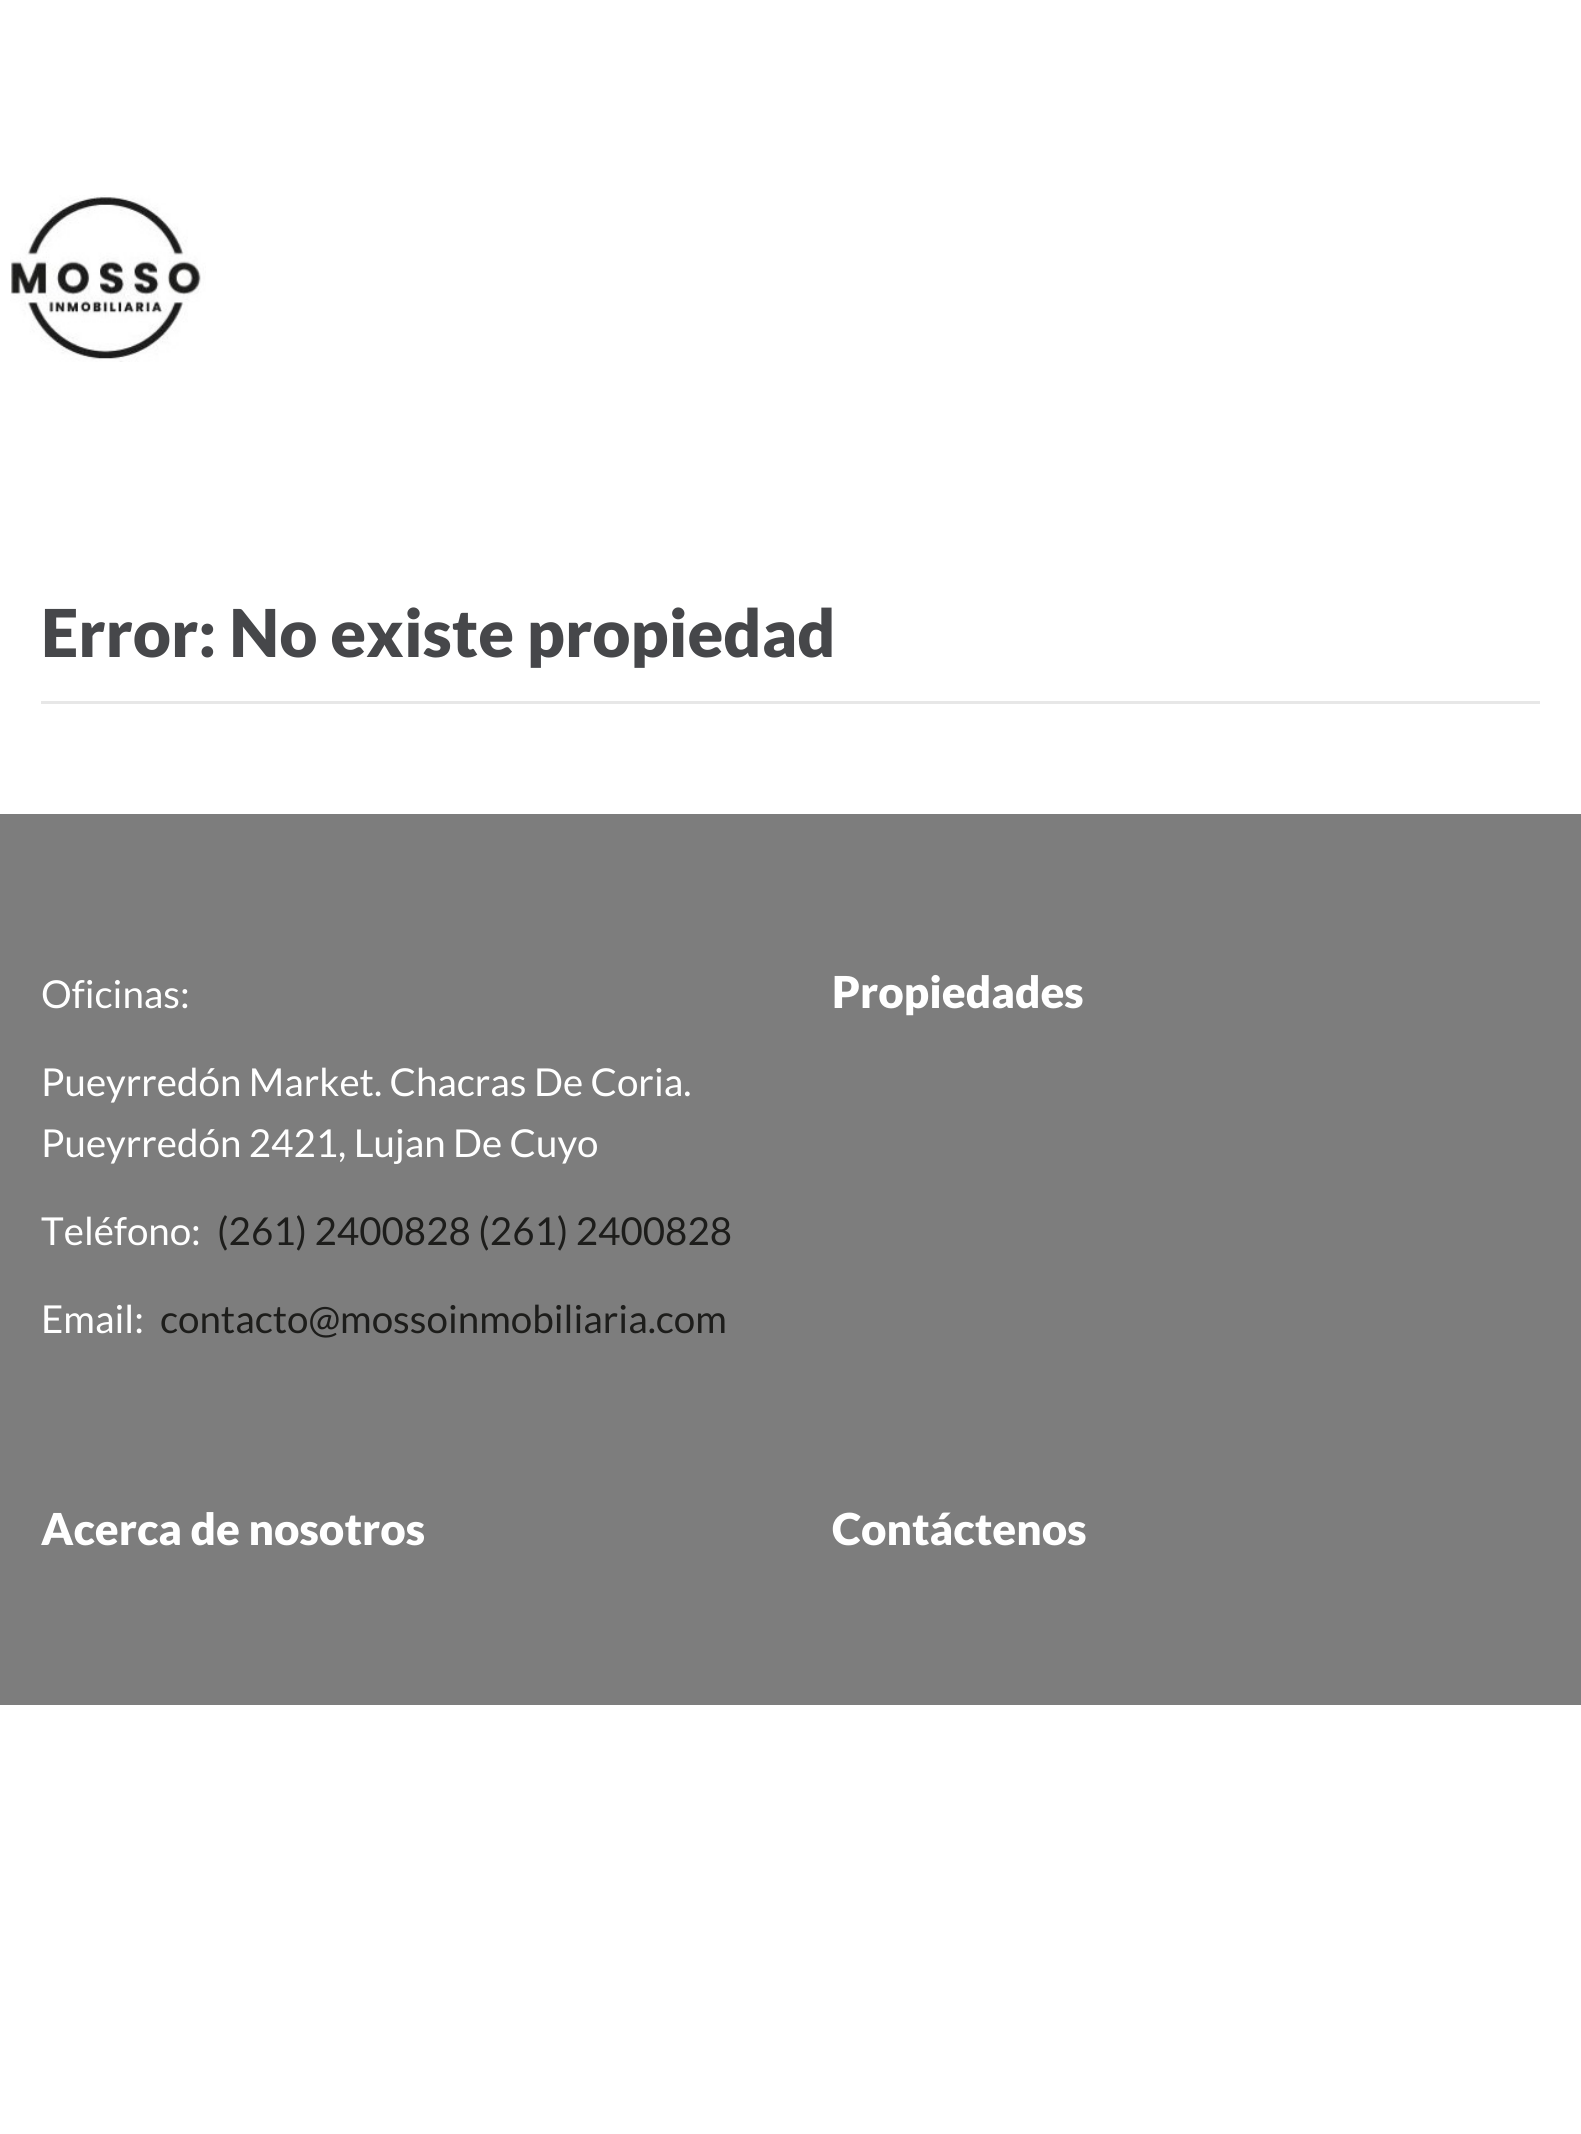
import math
import cairo

surface = cairo.ImageSurface(cairo.FORMAT_RGB24, 1581, 2134)
ctx = cairo.Context(surface)
options = cairo.FontOptions()
options.set_hint_metrics(cairo.HINT_METRICS_OFF)
options.set_hint_style(cairo.HINT_STYLE_NONE)
ctx.set_font_options(options)
ctx.set_miter_limit(4)


def picture(path, x, y, w, h):
    ctx.save()
    ctx.set_source_surface(cairo.ImageSurface.create_from_png(path), x, y)
    ctx.rectangle(x, y, w, h)
    ctx.fill()
    ctx.restore()


ctx.set_source_rgb(1, 1, 1)
ctx.paint()
picture("img1.png", 10, 195, 196, 167)
ctx.set_source_rgb(0.906, 0.906, 0.906)
ctx.rectangle(41, 701, 1499, 3)
ctx.fill()
ctx.select_font_face("Lato Black")
ctx.set_font_size(66)
ctx.set_source_rgb(0.275, 0.278, 0.29)
ctx.move_to(41, 657)
ctx.show_text("Error: No existe propiedad")
ctx.set_source_rgb(0.49, 0.49, 0.49)
ctx.rectangle(0, 814, 1581, 891)
ctx.fill()
ctx.select_font_face("Lato")
ctx.set_font_size(38.5)
ctx.set_source_rgb(1, 1, 1)
ctx.move_to(41, 1008)
ctx.show_text("Oficinas:")
ctx.move_to(41, 1096)
ctx.show_text("Pueyrredón Market. Chacras De Coria.")
ctx.move_to(41, 1157)
ctx.show_text("Pueyrredón 2421, Lujan De Cuyo")
ctx.move_to(41, 1245)
ctx.show_text("Teléfono:")
ctx.set_source_rgb(0.114, 0.114, 0.106)
ctx.move_to(217, 1245)
ctx.show_text("(261) 2400828 (261) 2400828")
ctx.set_source_rgb(1, 1, 1)
ctx.move_to(41, 1333)
ctx.show_text("Email:")
ctx.set_source_rgb(0.114, 0.114, 0.106)
ctx.move_to(160, 1333)
ctx.show_text("contacto@mossoinmobiliaria.com")
ctx.select_font_face("Lato Black")
ctx.set_font_size(44)
ctx.set_source_rgb(1, 1, 1)
ctx.move_to(832, 1008)
ctx.show_text("Propiedades")
ctx.move_to(41, 1545)
ctx.show_text("Acerca de nosotros")
ctx.move_to(832, 1545)
ctx.show_text("Contáctenos")
surface.write_to_png("page.png")
